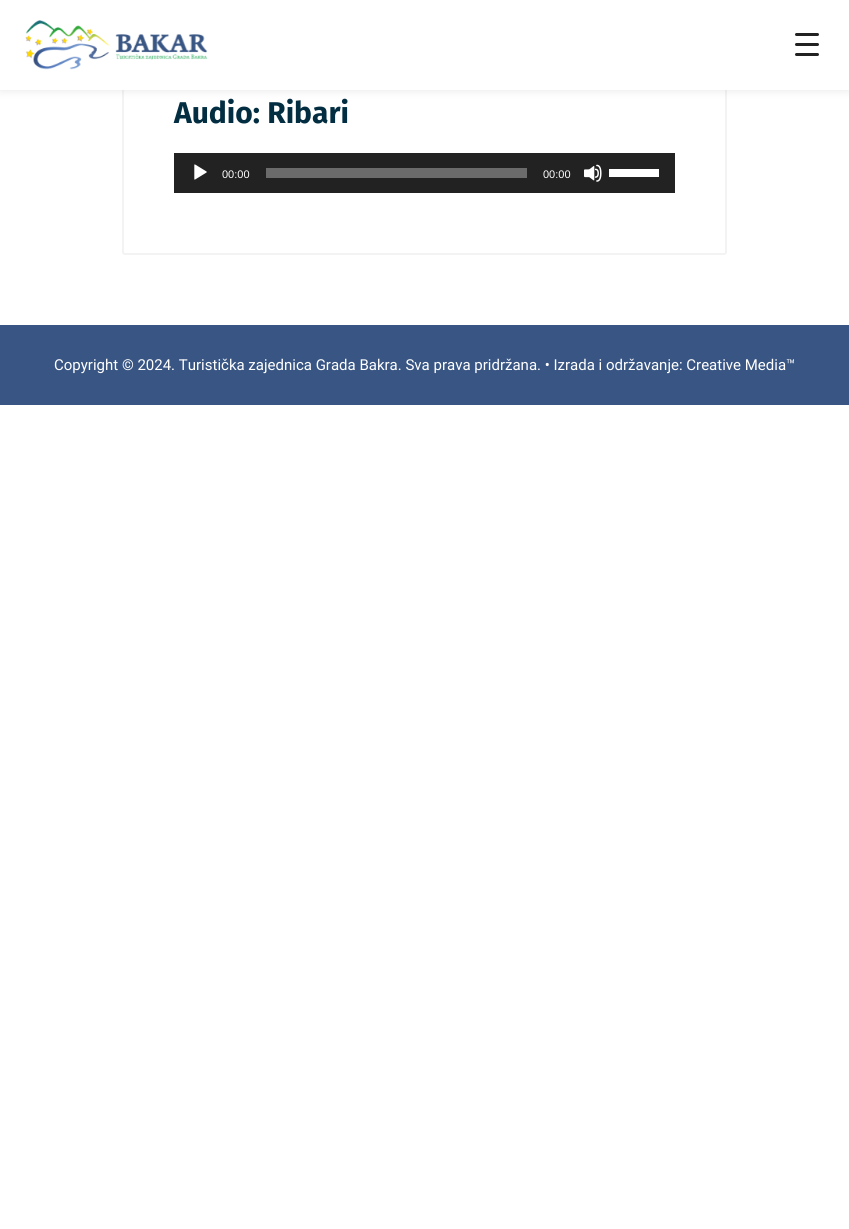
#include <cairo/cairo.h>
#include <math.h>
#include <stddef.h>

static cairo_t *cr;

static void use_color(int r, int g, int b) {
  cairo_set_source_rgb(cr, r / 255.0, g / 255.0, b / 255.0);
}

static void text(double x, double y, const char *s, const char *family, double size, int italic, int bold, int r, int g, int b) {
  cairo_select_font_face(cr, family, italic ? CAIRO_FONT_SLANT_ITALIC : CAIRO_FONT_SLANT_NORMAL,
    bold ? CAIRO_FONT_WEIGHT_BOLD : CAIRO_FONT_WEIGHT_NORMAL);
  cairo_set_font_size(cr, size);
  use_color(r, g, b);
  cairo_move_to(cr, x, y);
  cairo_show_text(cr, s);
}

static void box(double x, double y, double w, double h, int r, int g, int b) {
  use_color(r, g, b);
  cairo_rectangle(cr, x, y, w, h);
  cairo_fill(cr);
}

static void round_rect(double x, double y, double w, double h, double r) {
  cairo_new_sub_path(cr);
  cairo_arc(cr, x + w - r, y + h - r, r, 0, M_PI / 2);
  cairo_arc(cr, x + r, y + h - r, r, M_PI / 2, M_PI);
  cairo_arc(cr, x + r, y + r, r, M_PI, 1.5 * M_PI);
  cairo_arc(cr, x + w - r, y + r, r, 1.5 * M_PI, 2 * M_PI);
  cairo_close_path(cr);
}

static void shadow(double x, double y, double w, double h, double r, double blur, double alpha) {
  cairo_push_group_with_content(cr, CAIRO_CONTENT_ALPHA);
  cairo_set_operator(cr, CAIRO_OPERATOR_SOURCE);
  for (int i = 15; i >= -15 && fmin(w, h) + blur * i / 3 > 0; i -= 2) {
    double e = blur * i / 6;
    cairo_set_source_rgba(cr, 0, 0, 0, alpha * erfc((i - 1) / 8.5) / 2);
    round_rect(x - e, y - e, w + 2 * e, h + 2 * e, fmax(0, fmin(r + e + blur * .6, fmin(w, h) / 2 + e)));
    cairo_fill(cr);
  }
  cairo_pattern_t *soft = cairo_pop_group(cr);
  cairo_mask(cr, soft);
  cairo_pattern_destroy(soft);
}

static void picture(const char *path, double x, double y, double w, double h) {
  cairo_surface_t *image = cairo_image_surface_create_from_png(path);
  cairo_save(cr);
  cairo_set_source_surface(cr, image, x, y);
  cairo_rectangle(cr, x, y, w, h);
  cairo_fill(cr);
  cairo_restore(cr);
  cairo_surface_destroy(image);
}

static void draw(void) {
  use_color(255, 255, 255);
  cairo_paint(cr);
  round_rect(123, 51, 603, 203, 2);
  use_color(243, 243, 243);
  cairo_stroke(cr);
  use_color(0, 0, 0);
  shadow(0, 0, 849, 90, 0, 5, 0.1);
  box(0, 0, 849, 90, 255, 255, 255);
  picture("img_01.png", 25, 20, 183, 50);
  use_color(34, 34, 34);
  round_rect(795, 43, 24, 3, 1.5);
  cairo_fill(cr);
  round_rect(795, 33, 24, 3, 1.5);
  cairo_fill(cr);
  round_rect(795, 53, 24, 3, 1.5);
  cairo_fill(cr);
  box(174, 153, 501, 40, 34, 34, 34);
  picture("img_02.png", 194, 164, 13, 16);
  box(266, 168, 261, 10, 107, 107, 107);
  picture("img_03.png", 584, 164, 18, 18);
  box(609, 169, 50, 8, 255, 255, 255);
  box(0, 325, 849, 80, 56, 85, 131);
  text(174, 123, "Audio: Ribari", "Fira Sans", 30, 0, 1, 3, 46, 66);
  text(222, 178, "00:00", "Liberation Sans", 11, 0, 0, 255, 255, 255);
  text(543, 178, "00:00", "Liberation Sans", 11, 0, 0, 255, 255, 255);
  text(54, 370, "Copyright © 2024. Turistička zajednica Grada Bakra. Sva prava pridržana. • Izrada i održavanje: Creative Media™", "Roboto", 15, 0, 0, 255, 255, 255);
}

int main(void) {
  cairo_surface_t *surface = cairo_image_surface_create(CAIRO_FORMAT_RGB24, 849, 1229);
  cr = cairo_create(surface);
  cairo_font_options_t *options = cairo_font_options_create();
  cairo_font_options_set_hint_metrics(options, CAIRO_HINT_METRICS_OFF);
  cairo_font_options_set_hint_style(options, CAIRO_HINT_STYLE_NONE);
  cairo_set_font_options(cr, options);
  cairo_set_miter_limit(cr, 4);
  draw();
  cairo_surface_write_to_png(surface, "out.png");
  cairo_font_options_destroy(options);
  cairo_destroy(cr);
  cairo_surface_destroy(surface);
  return 0;
}
